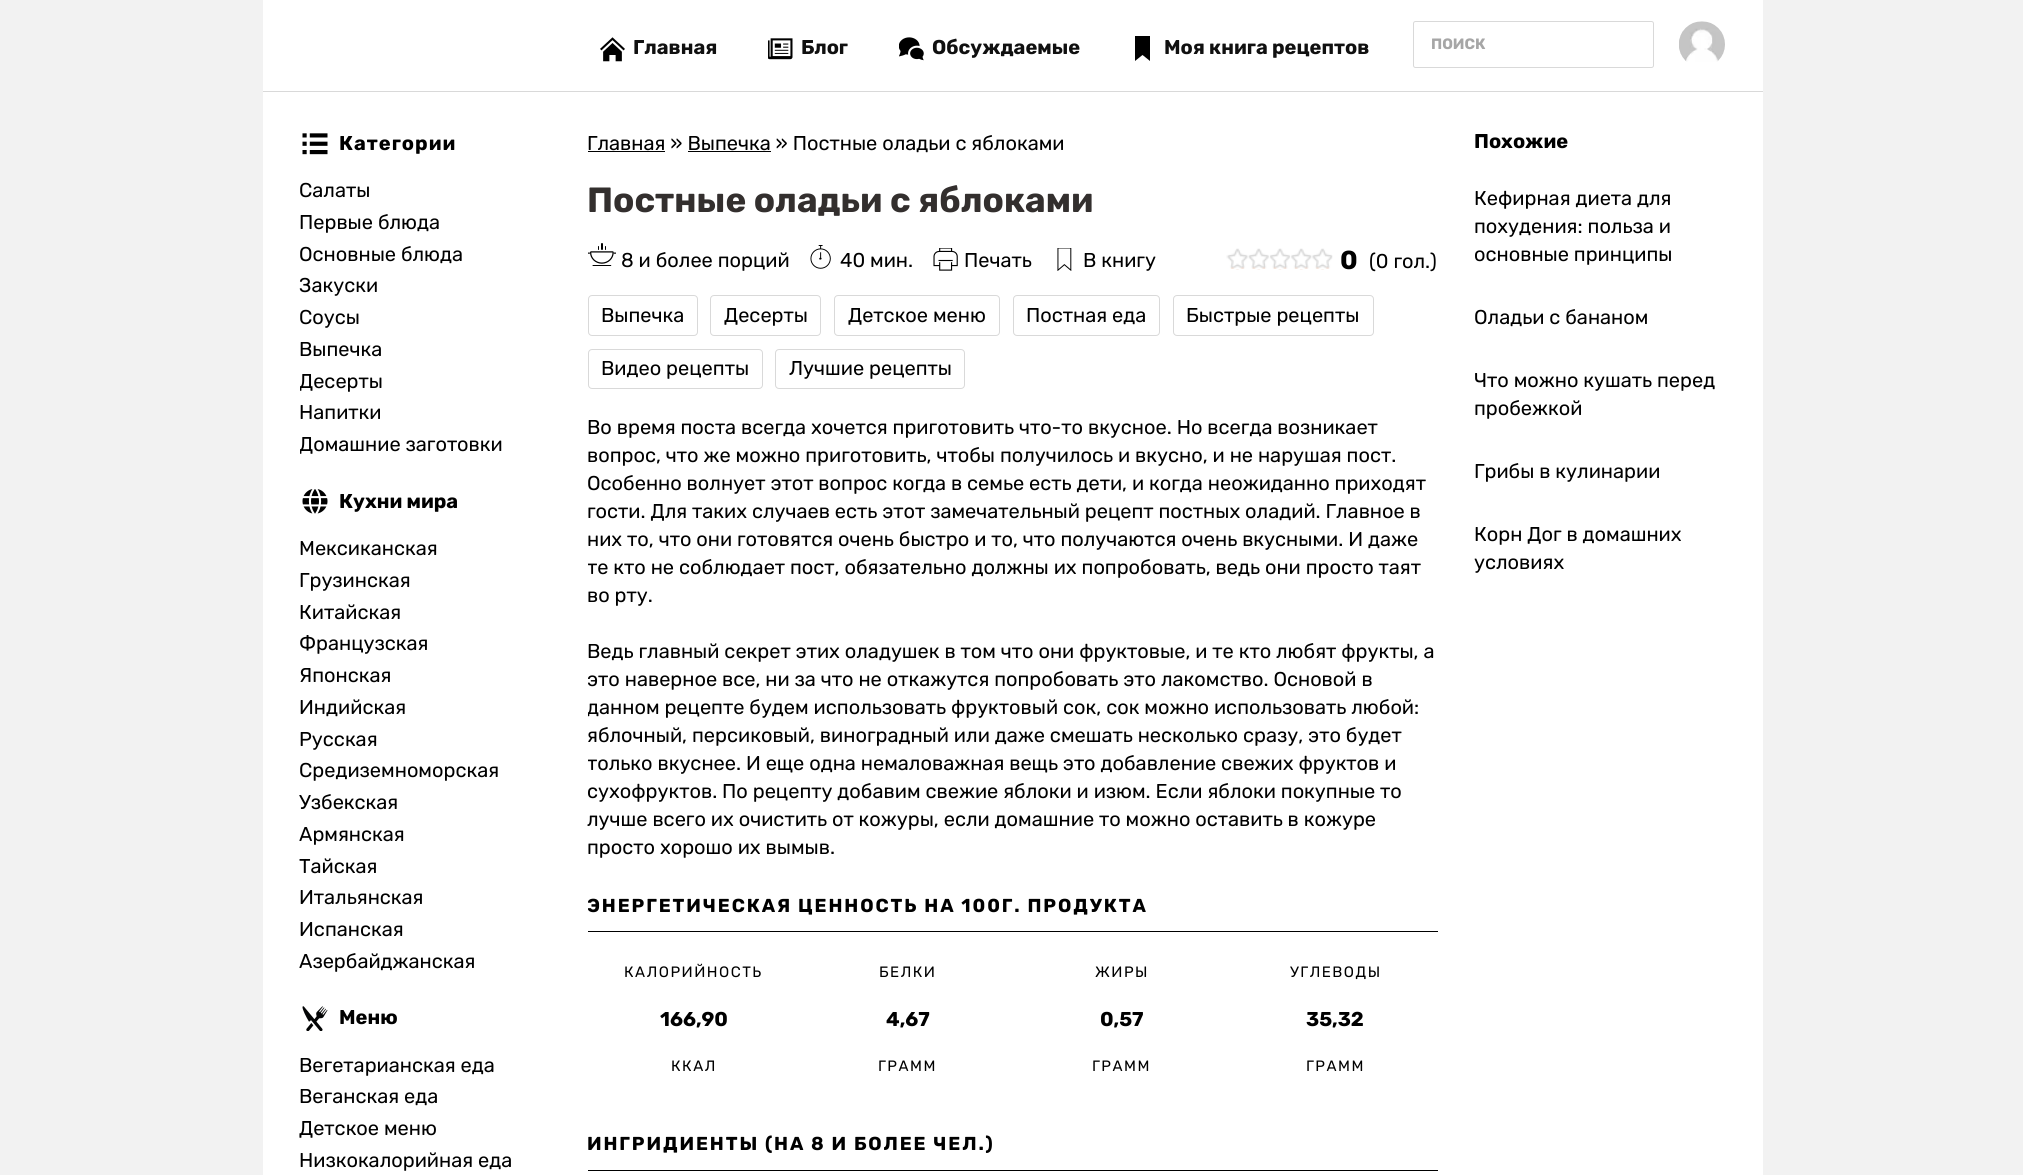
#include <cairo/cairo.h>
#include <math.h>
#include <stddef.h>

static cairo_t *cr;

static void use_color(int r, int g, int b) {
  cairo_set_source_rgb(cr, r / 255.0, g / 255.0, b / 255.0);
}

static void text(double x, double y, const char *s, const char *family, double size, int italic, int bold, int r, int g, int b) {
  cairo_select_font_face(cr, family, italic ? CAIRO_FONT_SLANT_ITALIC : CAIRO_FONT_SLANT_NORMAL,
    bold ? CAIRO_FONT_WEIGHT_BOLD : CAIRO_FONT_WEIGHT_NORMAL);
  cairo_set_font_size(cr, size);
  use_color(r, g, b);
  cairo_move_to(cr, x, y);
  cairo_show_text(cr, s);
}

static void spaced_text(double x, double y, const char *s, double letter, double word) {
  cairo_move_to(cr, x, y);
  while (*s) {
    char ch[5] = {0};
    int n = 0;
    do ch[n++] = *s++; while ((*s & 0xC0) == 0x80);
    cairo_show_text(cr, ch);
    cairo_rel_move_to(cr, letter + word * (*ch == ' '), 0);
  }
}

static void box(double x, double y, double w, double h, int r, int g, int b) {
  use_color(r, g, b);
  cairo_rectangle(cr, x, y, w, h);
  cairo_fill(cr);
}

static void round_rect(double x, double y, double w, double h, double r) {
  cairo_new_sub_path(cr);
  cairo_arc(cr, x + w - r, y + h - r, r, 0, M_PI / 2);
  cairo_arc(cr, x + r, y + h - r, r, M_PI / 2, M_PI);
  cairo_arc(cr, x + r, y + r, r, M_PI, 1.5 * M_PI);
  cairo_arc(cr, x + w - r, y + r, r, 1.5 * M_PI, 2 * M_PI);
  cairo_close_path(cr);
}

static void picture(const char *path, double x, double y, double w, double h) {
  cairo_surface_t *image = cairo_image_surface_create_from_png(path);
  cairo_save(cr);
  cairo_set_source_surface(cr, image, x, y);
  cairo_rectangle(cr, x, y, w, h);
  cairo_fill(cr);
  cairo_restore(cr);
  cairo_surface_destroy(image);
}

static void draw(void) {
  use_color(242, 242, 242);
  cairo_paint(cr);
  box(263, 0, 1500, 1175, 255, 255, 255);
  box(263, 91, 1500, 1, 217, 217, 217);
  picture("img_01.png", 600, 37, 25, 25);
  picture("img_02.png", 768, 38, 25, 22);
  picture("img_03.png", 899, 37, 25, 24);
  use_color(0, 0, 0);
  cairo_new_path(cr);
  cairo_move_to(cr, 1150, 61);
  cairo_line_to(cr, 1142.5, 55);
  cairo_line_to(cr, 1135, 61);
  cairo_line_to(cr, 1135, 36);
  cairo_line_to(cr, 1150, 36);
  cairo_close_path(cr);
  cairo_fill(cr);
  round_rect(1413.5, 21.5, 240, 46, 2);
  use_color(217, 217, 217);
  cairo_set_line_width(cr, 1);
  cairo_stroke(cr);
  picture("img_04.png", 1679, 21, 46, 41);
  picture("img_05.png", 302, 133, 26, 22);
  picture("img_06.png", 302, 489, 26, 25);
  picture("img_07.png", 302, 1006, 26, 25);
  box(588, 151, 77, 1, 0, 0, 0);
  box(688, 151, 83, 1, 0, 0, 0);
  picture("img_08.png", 588, 243, 28, 23);
  picture("img_09.png", 810, 245, 21, 24);
  picture("img_10.png", 933, 248, 25, 23);
  picture("img_11.png", 1057, 248, 15, 23);
  picture("img_12.png", 1226, 248, 107, 22);
  round_rect(588.5, 295.5, 109, 40, 3.5);
  use_color(217, 217, 217);
  cairo_stroke(cr);
  round_rect(710.5, 295.5, 110, 40, 3.5);
  cairo_stroke(cr);
  round_rect(834.5, 295.5, 165, 40, 3.5);
  cairo_stroke(cr);
  round_rect(1013.5, 295.5, 146, 40, 3.5);
  cairo_stroke(cr);
  round_rect(1173.5, 295.5, 200, 40, 3.5);
  cairo_stroke(cr);
  round_rect(588.5, 349.5, 174, 39, 3.5);
  cairo_stroke(cr);
  round_rect(775.5, 349.5, 189, 39, 3.5);
  cairo_stroke(cr);
  box(588, 931, 850, 1, 0, 0, 0);
  box(588, 1170, 850, 1, 0, 0, 0);
  text(633, 54, "Главная", "Rubik", 20, 0, 1, 16, 16, 16);
  text(801, 54, "Блог", "Rubik", 20, 0, 1, 16, 16, 16);
  text(932, 54, "Обсуждаемые", "Rubik", 20, 0, 1, 16, 16, 16);
  text(1164, 54, "Моя книга рецептов", "Rubik", 20, 0, 1, 16, 16, 16);
  text(1431, 49, "ПОИСК", "Rubik", 15, 0, 1, 166, 166, 166);
  cairo_set_font_size(cr, 20);
  use_color(0, 0, 0);
  spaced_text(339, 150, "Категории", 1, 0);
  text(299, 197, "Салаты", "Rubik", 20, 0, 0, 0, 0, 0);
  text(299, 229, "Первые блюда", "Rubik", 20, 0, 0, 0, 0, 0);
  text(299, 261, "Основные блюда", "Rubik", 20, 0, 0, 0, 0, 0);
  text(299, 292, "Закуски", "Rubik", 20, 0, 0, 0, 0, 0);
  text(299, 324, "Соусы", "Rubik", 20, 0, 0, 0, 0, 0);
  text(299, 356, "Выпечка", "Rubik", 20, 0, 0, 0, 0, 0);
  cairo_save(cr);
  cairo_rectangle(cr, 300, 364, 250, 32);
  cairo_clip(cr);
  text(299, 388, "Десерты", "Rubik", 20, 0, 0, 0, 0, 0);
  cairo_restore(cr);
  text(299, 419, "Напитки", "Rubik", 20, 0, 0, 0, 0, 0);
  cairo_save(cr);
  cairo_rectangle(cr, 300, 428, 250, 31);
  cairo_clip(cr);
  text(299, 451, "Домашние заготовки", "Rubik", 20, 0, 0, 0, 0, 0);
  cairo_restore(cr);
  text(339, 508, "Кухни мира", "Rubik", 20, 0, 1, 0, 0, 0);
  text(299, 555, "Мексиканская", "Rubik", 20, 0, 0, 0, 0, 0);
  text(299, 587, "Грузинская", "Rubik", 20, 0, 0, 0, 0, 0);
  text(299, 619, "Китайская", "Rubik", 20, 0, 0, 0, 0, 0);
  text(299, 650, "Французская", "Rubik", 20, 0, 0, 0, 0, 0);
  text(299, 682, "Японская", "Rubik", 20, 0, 0, 0, 0, 0);
  text(299, 714, "Индийская", "Rubik", 20, 0, 0, 0, 0, 0);
  text(299, 746, "Русская", "Rubik", 20, 0, 0, 0, 0, 0);
  text(299, 777, "Средиземноморская", "Rubik", 20, 0, 0, 0, 0, 0);
  text(299, 809, "Узбекская", "Rubik", 20, 0, 0, 0, 0, 0);
  text(299, 841, "Армянская", "Rubik", 20, 0, 0, 0, 0, 0);
  text(299, 873, "Тайская", "Rubik", 20, 0, 0, 0, 0, 0);
  text(299, 904, "Итальянская", "Rubik", 20, 0, 0, 0, 0, 0);
  text(299, 936, "Испанская", "Rubik", 20, 0, 0, 0, 0, 0);
  text(299, 968, "Азербайджанская", "Rubik", 20, 0, 0, 0, 0, 0);
  text(339, 1024, "Меню", "Rubik", 20, 0, 1, 0, 0, 0);
  text(299, 1072, "Вегетарианская еда", "Rubik", 20, 0, 0, 0, 0, 0);
  text(299, 1103, "Веганская еда", "Rubik", 20, 0, 0, 0, 0, 0);
  text(299, 1135, "Детское меню", "Rubik", 20, 0, 0, 0, 0, 0);
  text(299, 1167, "Низкокалорийная еда", "Rubik", 20, 0, 0, 0, 0, 0);
  text(587, 150, "Главная » Выпечка » Постные оладьи с яблоками", "Rubik", 20, 0, 0, 0, 0, 0);
  text(587, 212, "Постные оладьи с яблоками", "Rubik", 35, 0, 1, 51, 47, 46);
  text(621, 267, "8 и более порций", "Rubik", 20, 0, 0, 0, 0, 0);
  text(840, 267, "40 мин.", "Rubik", 20, 0, 0, 0, 0, 0);
  text(964, 267, "Печать", "Rubik", 20, 0, 0, 0, 0, 0);
  text(1083, 267, "В книгу", "Rubik", 20, 0, 0, 0, 0, 0);
  text(1340, 269, "0", "Rubik", 26, 0, 1, 0, 0, 0);
  text(1369, 268, "(0 гол.)", "Rubik", 20, 0, 0, 0, 0, 0);
  text(601, 322, "Выпечка", "Rubik", 20, 0, 0, 0, 0, 0);
  text(724, 322, "Десерты", "Rubik", 20, 0, 0, 0, 0, 0);
  text(848, 322, "Детское меню", "Rubik", 20, 0, 0, 0, 0, 0);
  text(1026, 322, "Постная еда", "Rubik", 20, 0, 0, 0, 0, 0);
  text(1186, 322, "Быстрые рецепты", "Rubik", 20, 0, 0, 0, 0, 0);
  text(601, 375, "Видео рецепты", "Rubik", 20, 0, 0, 0, 0, 0);
  text(789, 375, "Лучшие рецепты", "Rubik", 20, 0, 0, 0, 0, 0);
  text(587, 434, "Во время поста всегда хочется приготовить что-то вкусное. Но всегда возникает", "Rubik", 20, 0, 0, 0, 0, 0);
  text(587, 462, "вопрос, что же можно приготовить, чтобы получилось и вкусно, и не нарушая пост.", "Rubik", 20, 0, 0, 0, 0, 0);
  text(587, 490, "Особенно волнует этот вопрос когда в семье есть дети, и когда неожиданно приходят", "Rubik", 20, 0, 0, 0, 0, 0);
  text(587, 518, "гости. Для таких случаев есть этот замечательный рецепт постных оладий. Главное в", "Rubik", 20, 0, 0, 0, 0, 0);
  text(587, 546, "них то, что они готовятся очень быстро и то, что получаются очень вкусными. И даже", "Rubik", 20, 0, 0, 0, 0, 0);
  cairo_save(cr);
  round_rect(588, 183, 850, 678, 4);
  cairo_clip(cr);
  text(587, 574, "те кто не соблюдает пост, обязательно должны их попробовать, ведь они просто таят", "Rubik", 20, 0, 0, 0, 0, 0);
  cairo_restore(cr);
  text(587, 602, "во рту.", "Rubik", 20, 0, 0, 0, 0, 0);
  text(587, 658, "Ведь главный секрет этих оладушек в том что они фруктовые, и те кто любят фрукты, а", "Rubik", 20, 0, 0, 0, 0, 0);
  text(587, 686, "это наверное все, ни за что не откажутся попробовать это лакомство. Основой в", "Rubik", 20, 0, 0, 0, 0, 0);
  cairo_save(cr);
  round_rect(588, 183, 850, 678, 4);
  cairo_clip(cr);
  text(587, 714, "данном рецепте будем использовать фруктовый сок, сок можно использовать любой:", "Rubik", 20, 0, 0, 0, 0, 0);
  cairo_restore(cr);
  text(587, 742, "яблочный, персиковый, виноградный или даже смешать несколько сразу, это будет", "Rubik", 20, 0, 0, 0, 0, 0);
  cairo_save(cr);
  round_rect(588, 183, 850, 678, 4);
  cairo_clip(cr);
  text(587, 770, "только вкуснее. И еще одна немаловажная вещь это добавление свежих фруктов и", "Rubik", 20, 0, 0, 0, 0, 0);
  cairo_restore(cr);
  text(587, 798, "сухофруктов. По рецепту добавим свежие яблоки и изюм. Если яблоки покупные то", "Rubik", 20, 0, 0, 0, 0, 0);
  text(587, 826, "лучше всего их очистить от кожуры, если домашние то можно оставить в кожуре", "Rubik", 20, 0, 0, 0, 0, 0);
  text(587, 854, "просто хорошо их вымыв.", "Rubik", 20, 0, 0, 0, 0, 0);
  cairo_save(cr);
  cairo_rectangle(cr, 588, 93, 881, 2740);
  cairo_clip(cr);
  cairo_select_font_face(cr, "Rubik", CAIRO_FONT_SLANT_NORMAL, CAIRO_FONT_WEIGHT_BOLD);
  cairo_set_font_size(cr, 18.75);
  spaced_text(587, 912, "ЭНЕРГЕТИЧЕСКАЯ ЦЕННОСТЬ НА 100Г. ПРОДУКТА", 1.9, 0);
  cairo_restore(cr);
  cairo_set_font_size(cr, 15);
  spaced_text(624, 977, "КАЛОРИЙНОСТЬ", 1.5, 0);
  text(660, 1026, "166,90", "Rubik", 20, 0, 1, 0, 0, 0);
  cairo_select_font_face(cr, "Rubik", CAIRO_FONT_SLANT_NORMAL, CAIRO_FONT_WEIGHT_NORMAL);
  cairo_set_font_size(cr, 15);
  spaced_text(671, 1071, "ККАЛ", 1.5, 0);
  spaced_text(879, 977, "БЕЛКИ", 1.5, 0);
  text(886, 1026, "4,67", "Rubik", 20, 0, 1, 0, 0, 0);
  cairo_select_font_face(cr, "Rubik", CAIRO_FONT_SLANT_NORMAL, CAIRO_FONT_WEIGHT_NORMAL);
  cairo_set_font_size(cr, 15);
  spaced_text(878, 1071, "ГРАММ", 1.5, 0);
  spaced_text(1095, 977, "ЖИРЫ", 1.5, 0);
  text(1100, 1026, "0,57", "Rubik", 20, 0, 1, 0, 0, 0);
  cairo_select_font_face(cr, "Rubik", CAIRO_FONT_SLANT_NORMAL, CAIRO_FONT_WEIGHT_NORMAL);
  cairo_set_font_size(cr, 15);
  spaced_text(1092, 1071, "ГРАММ", 1.5, 0);
  spaced_text(1290, 977, "УГЛЕВОДЫ", 1.5, 0);
  text(1306, 1026, "35,32", "Rubik", 20, 0, 1, 0, 0, 0);
  cairo_select_font_face(cr, "Rubik", CAIRO_FONT_SLANT_NORMAL, CAIRO_FONT_WEIGHT_NORMAL);
  cairo_set_font_size(cr, 15);
  spaced_text(1306, 1071, "ГРАММ", 1.5, 0);
  cairo_select_font_face(cr, "Rubik", CAIRO_FONT_SLANT_NORMAL, CAIRO_FONT_WEIGHT_BOLD);
  cairo_set_font_size(cr, 18.75);
  spaced_text(587, 1150, "ИНГРИДИЕНТЫ (НА 8 И БОЛЕЕ ЧЕЛ.)", 1.9, 0);
  text(1474, 148, "Похожие", "Rubik", 20, 0, 1, 0, 0, 0);
  text(1474, 205, "Кефирная диета для", "Rubik", 20, 0, 0, 0, 0, 0);
  text(1474, 233, "похудения: польза и", "Rubik", 20, 0, 0, 0, 0, 0);
  text(1474, 261, "основные принципы", "Rubik", 20, 0, 0, 0, 0, 0);
  text(1474, 324, "Оладьи с бананом", "Rubik", 20, 0, 0, 0, 0, 0);
  text(1474, 387, "Что можно кушать перед", "Rubik", 20, 0, 0, 0, 0, 0);
  text(1474, 415, "пробежкой", "Rubik", 20, 0, 0, 0, 0, 0);
  text(1474, 478, "Грибы в кулинарии", "Rubik", 20, 0, 0, 0, 0, 0);
  text(1474, 541, "Корн Дог в домашних", "Rubik", 20, 0, 0, 0, 0, 0);
  text(1474, 569, "условиях", "Rubik", 20, 0, 0, 0, 0, 0);
}

int main(void) {
  cairo_surface_t *surface = cairo_image_surface_create(CAIRO_FORMAT_RGB24, 2023, 1175);
  cr = cairo_create(surface);
  cairo_font_options_t *options = cairo_font_options_create();
  cairo_font_options_set_hint_metrics(options, CAIRO_HINT_METRICS_OFF);
  cairo_font_options_set_hint_style(options, CAIRO_HINT_STYLE_NONE);
  cairo_set_font_options(cr, options);
  cairo_set_miter_limit(cr, 4);
  draw();
  cairo_surface_write_to_png(surface, "out.png");
  cairo_font_options_destroy(options);
  cairo_destroy(cr);
  cairo_surface_destroy(surface);
  return 0;
}
